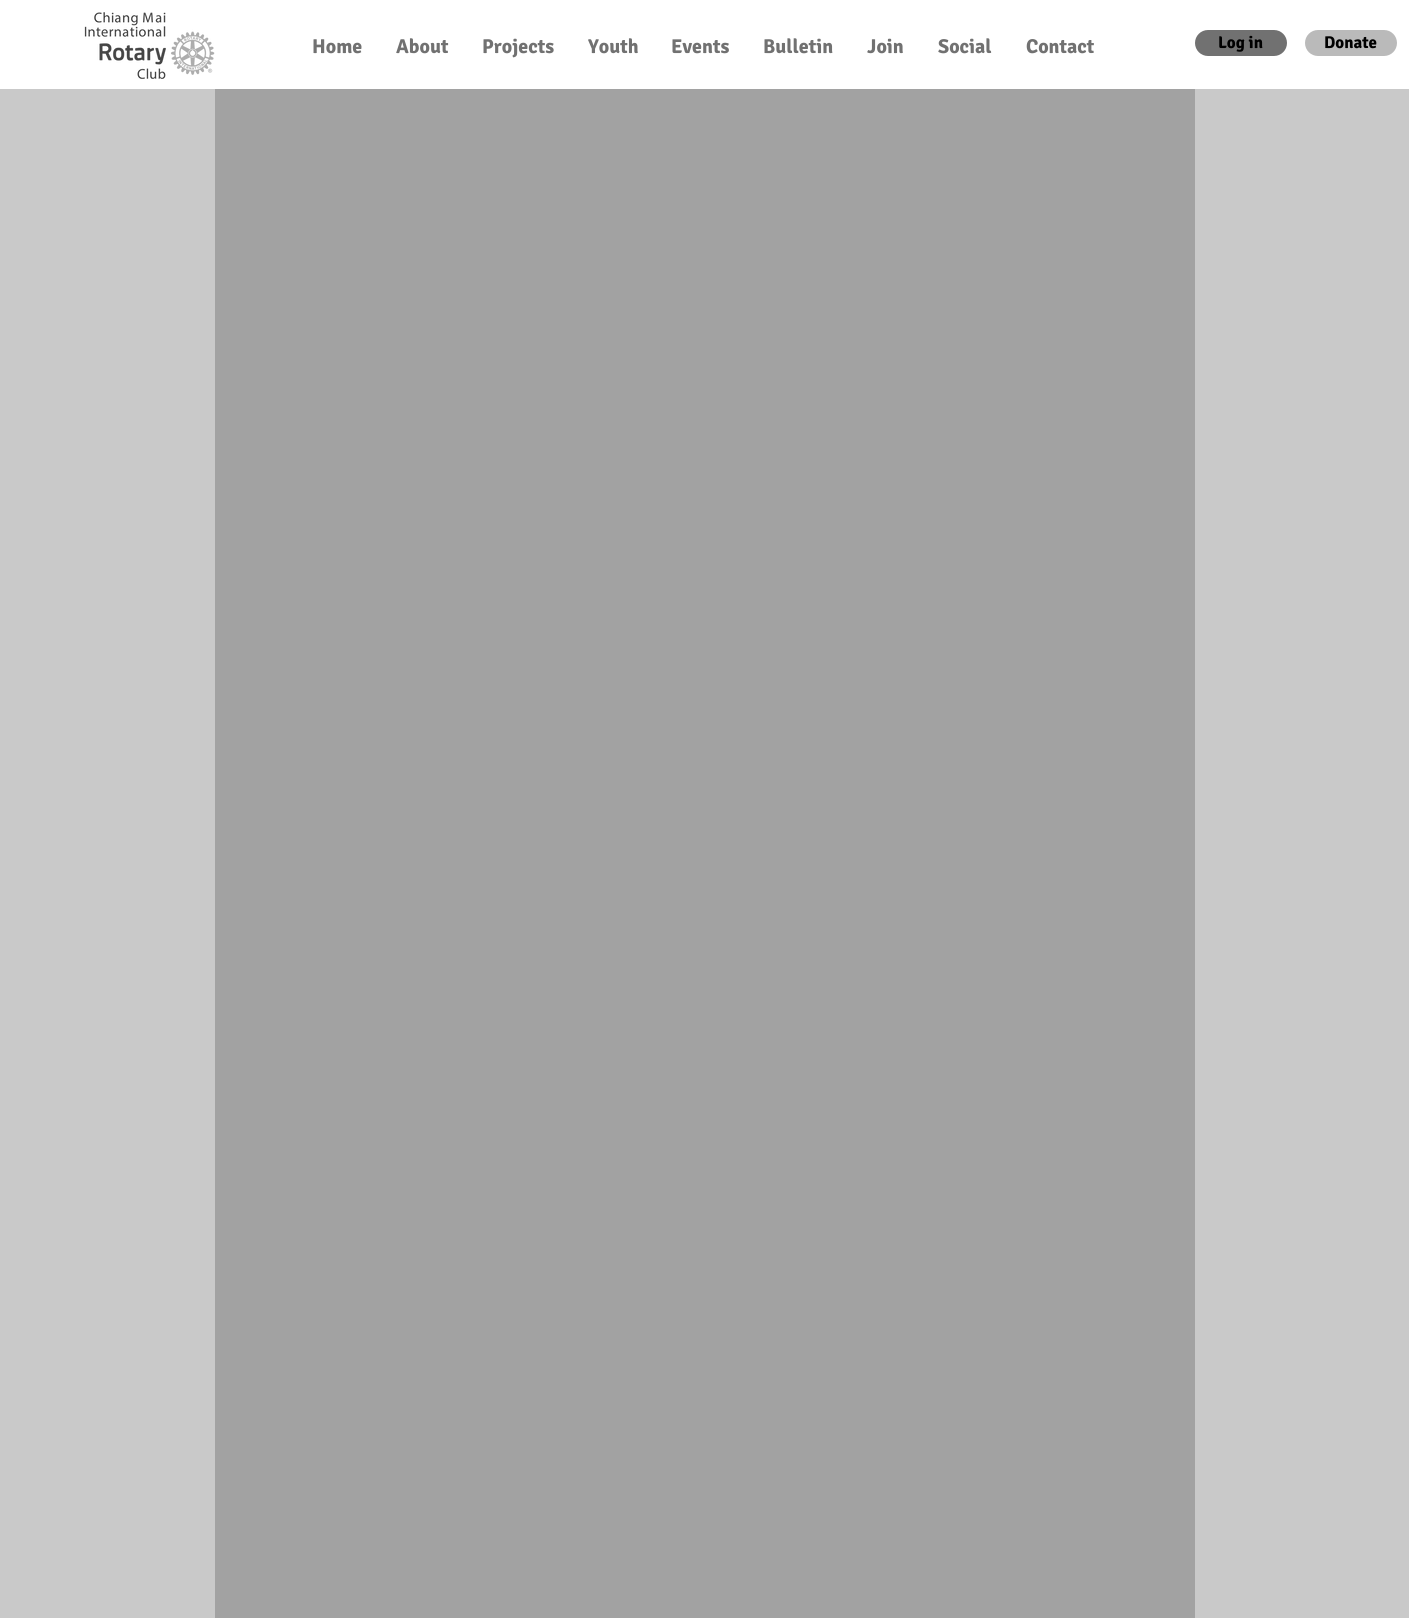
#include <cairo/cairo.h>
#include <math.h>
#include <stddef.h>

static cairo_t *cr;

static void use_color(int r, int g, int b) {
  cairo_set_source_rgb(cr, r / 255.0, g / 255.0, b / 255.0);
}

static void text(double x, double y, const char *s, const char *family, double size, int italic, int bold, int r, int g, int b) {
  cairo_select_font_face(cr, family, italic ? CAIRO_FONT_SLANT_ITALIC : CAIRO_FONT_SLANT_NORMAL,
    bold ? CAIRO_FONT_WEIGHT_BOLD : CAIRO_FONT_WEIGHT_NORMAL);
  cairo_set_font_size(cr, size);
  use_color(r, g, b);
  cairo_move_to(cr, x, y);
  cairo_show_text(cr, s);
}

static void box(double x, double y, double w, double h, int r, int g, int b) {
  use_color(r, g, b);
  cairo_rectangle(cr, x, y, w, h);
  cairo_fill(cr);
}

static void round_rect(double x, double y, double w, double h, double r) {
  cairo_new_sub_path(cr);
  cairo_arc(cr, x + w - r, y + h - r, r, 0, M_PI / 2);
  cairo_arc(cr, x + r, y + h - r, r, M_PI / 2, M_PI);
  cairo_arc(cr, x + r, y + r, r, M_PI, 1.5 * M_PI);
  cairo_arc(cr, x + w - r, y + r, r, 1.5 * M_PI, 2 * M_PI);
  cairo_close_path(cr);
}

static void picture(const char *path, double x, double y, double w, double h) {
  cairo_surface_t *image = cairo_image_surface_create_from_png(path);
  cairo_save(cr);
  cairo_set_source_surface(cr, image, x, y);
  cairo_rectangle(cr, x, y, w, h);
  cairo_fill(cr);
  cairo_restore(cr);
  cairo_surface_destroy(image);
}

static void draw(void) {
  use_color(201, 201, 201);
  cairo_paint(cr);
  box(0, 0, 1409, 89, 255, 255, 255);
  picture("img_01.png", 84, 12, 131, 67);
  use_color(113, 113, 113);
  round_rect(1195, 30, 92, 26, 13);
  cairo_fill(cr);
  use_color(186, 186, 186);
  round_rect(1305, 30, 92, 26, 13);
  cairo_fill(cr);
  box(215, 89, 980, 1529, 162, 162, 162);
  text(312, 53, "Home", "Signika", 20, 0, 1, 113, 113, 113);
  text(396, 53, "About", "Signika", 20, 0, 1, 113, 113, 113);
  text(482, 53, "Projects", "Signika", 20, 0, 1, 113, 113, 113);
  text(588, 53, "Youth", "Signika", 20, 0, 1, 113, 113, 113);
  text(671, 53, "Events", "Signika", 20, 0, 1, 113, 113, 113);
  text(763, 53, "Bulletin", "Signika", 20, 0, 1, 113, 113, 113);
  text(867, 53, "Join", "Signika", 20, 0, 1, 113, 113, 113);
  text(938, 53, "Social", "Signika", 20, 0, 1, 113, 113, 113);
  text(1026, 53, "Contact", "Signika", 20, 0, 1, 113, 113, 113);
  text(1218, 48, "Log in", "Signika", 17, 0, 1, 0, 0, 0);
  text(1324, 48, "Donate", "Signika", 17, 0, 1, 0, 0, 0);
}

int main(void) {
  cairo_surface_t *surface = cairo_image_surface_create(CAIRO_FORMAT_RGB24, 1409, 1618);
  cr = cairo_create(surface);
  cairo_font_options_t *options = cairo_font_options_create();
  cairo_font_options_set_hint_metrics(options, CAIRO_HINT_METRICS_OFF);
  cairo_font_options_set_hint_style(options, CAIRO_HINT_STYLE_NONE);
  cairo_set_font_options(cr, options);
  cairo_set_miter_limit(cr, 4);
  draw();
  cairo_surface_write_to_png(surface, "out.png");
  cairo_font_options_destroy(options);
  cairo_destroy(cr);
  cairo_surface_destroy(surface);
  return 0;
}
